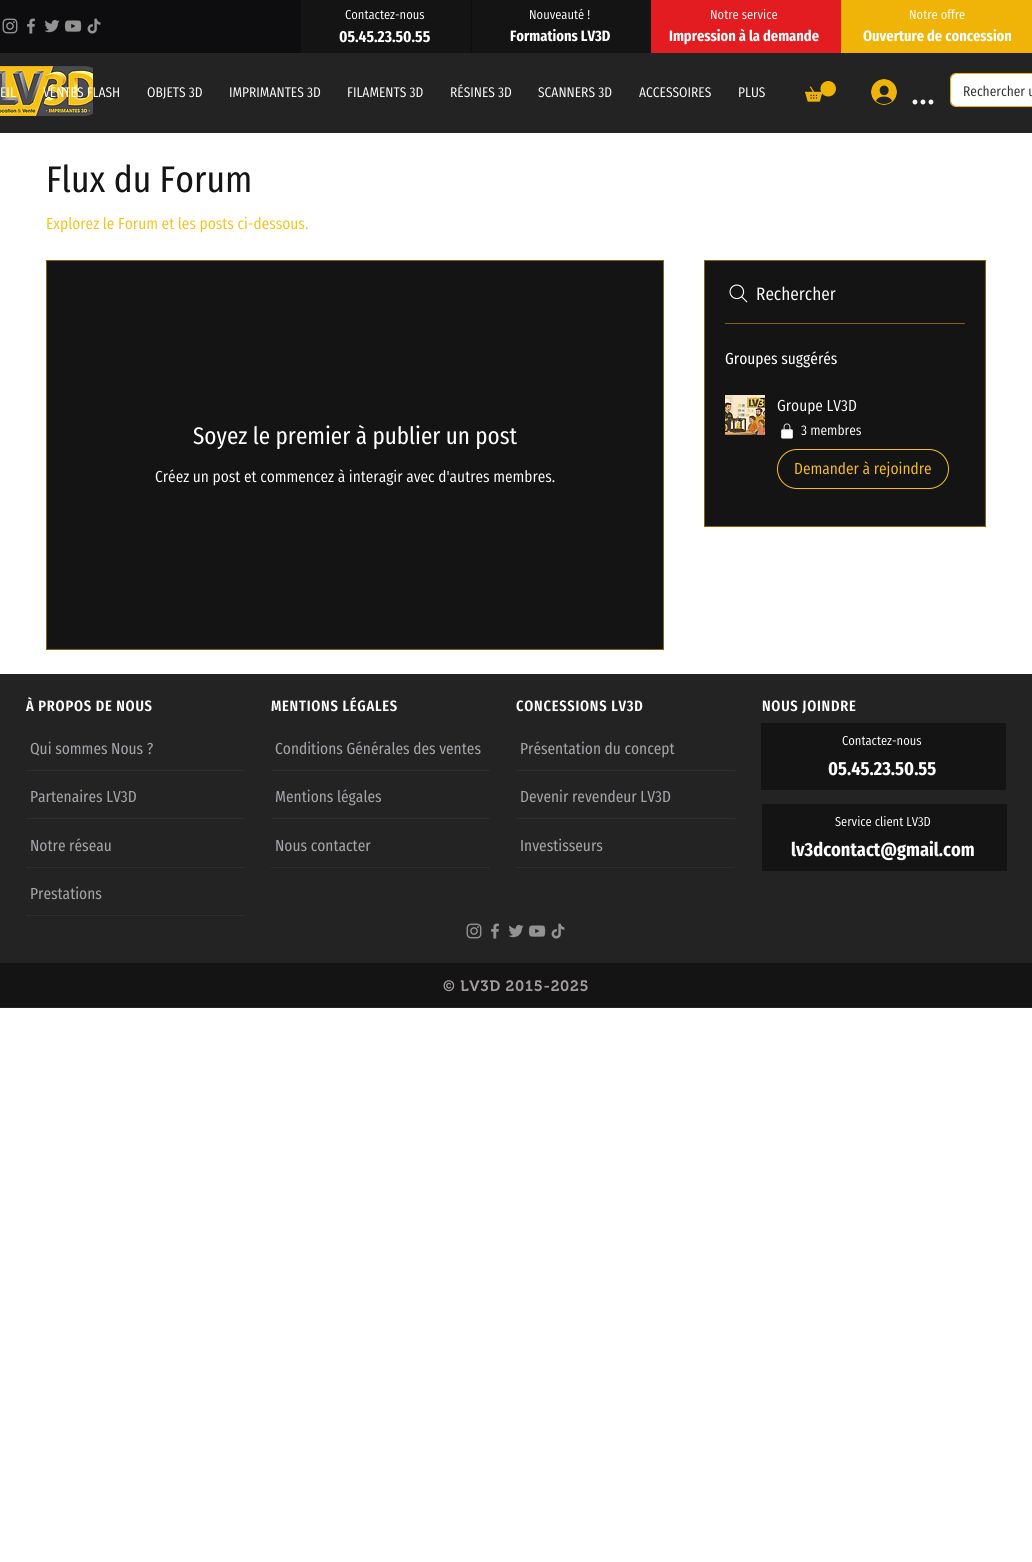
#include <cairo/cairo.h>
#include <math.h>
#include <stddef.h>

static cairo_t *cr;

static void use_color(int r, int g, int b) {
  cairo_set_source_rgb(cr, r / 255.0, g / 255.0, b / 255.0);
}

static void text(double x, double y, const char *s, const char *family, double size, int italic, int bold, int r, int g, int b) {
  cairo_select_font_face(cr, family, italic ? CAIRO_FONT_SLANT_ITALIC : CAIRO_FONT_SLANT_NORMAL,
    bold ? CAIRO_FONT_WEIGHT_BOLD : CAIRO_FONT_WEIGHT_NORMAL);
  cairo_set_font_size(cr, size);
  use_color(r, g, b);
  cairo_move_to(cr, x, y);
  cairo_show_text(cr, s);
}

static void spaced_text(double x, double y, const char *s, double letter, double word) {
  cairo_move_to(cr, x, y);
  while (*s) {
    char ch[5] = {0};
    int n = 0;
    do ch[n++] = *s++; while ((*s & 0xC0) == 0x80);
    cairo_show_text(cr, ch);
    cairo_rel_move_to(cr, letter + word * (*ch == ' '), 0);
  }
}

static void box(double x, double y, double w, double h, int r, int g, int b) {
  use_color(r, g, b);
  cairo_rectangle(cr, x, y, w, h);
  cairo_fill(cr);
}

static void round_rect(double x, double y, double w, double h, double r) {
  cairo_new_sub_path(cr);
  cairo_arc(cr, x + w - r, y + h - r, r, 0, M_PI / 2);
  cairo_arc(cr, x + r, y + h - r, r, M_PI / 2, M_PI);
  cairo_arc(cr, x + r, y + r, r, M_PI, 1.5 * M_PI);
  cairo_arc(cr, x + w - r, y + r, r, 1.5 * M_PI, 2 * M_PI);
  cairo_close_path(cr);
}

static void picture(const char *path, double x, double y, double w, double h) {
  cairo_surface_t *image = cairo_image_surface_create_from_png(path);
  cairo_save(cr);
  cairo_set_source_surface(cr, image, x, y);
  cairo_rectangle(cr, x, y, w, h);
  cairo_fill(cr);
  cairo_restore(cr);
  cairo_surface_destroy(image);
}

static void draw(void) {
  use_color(255, 255, 255);
  cairo_paint(cr);
  box(0, 0, 472, 53, 13, 12, 14);
  picture("img_01.png", 2, 18, 16, 16);
  picture("img_02.png", 27, 18, 8, 16);
  picture("img_03.png", 44, 19, 16, 14);
  picture("img_04.png", 64, 20, 18, 12);
  picture("img_05.png", 87, 18, 14, 16);
  box(301, 0, 170, 53, 20, 20, 20);
  box(472, 0, 179, 53, 20, 20, 20);
  box(651, 0, 190, 53, 226, 28, 33);
  box(841, 0, 191, 53, 239, 180, 7);
  box(0, 53, 1032, 80, 36, 35, 35);
  picture("img_06.png", 0, 66, 93, 50);
  picture("img_07.png", 805, 81, 31, 21);
  round_rect(950.5, 73.5, 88, 33, 5.5);
  use_color(239, 180, 7);
  cairo_set_line_width(cr, 1);
  cairo_stroke(cr);
  use_color(255, 255, 255);
  round_rect(951, 74, 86, 32, 5);
  cairo_fill(cr);
  picture("img_08.png", 871, 79, 26, 26);
  use_color(20, 20, 20);
  cairo_rectangle(cr, 46.5, 260.5, 617, 389);
  cairo_fill_preserve(cr);
  use_color(130, 100, 14);
  cairo_stroke(cr);
  use_color(20, 20, 20);
  cairo_rectangle(cr, 704.5, 260.5, 281, 266);
  cairo_fill_preserve(cr);
  use_color(130, 100, 14);
  cairo_stroke(cr);
  picture("img_09.png", 729, 284, 19, 19);
  box(725, 323, 240, 1, 130, 100, 14);
  picture("img_10.png", 725, 395, 40, 40);
  picture("img_11.png", 781, 423, 12, 16);
  round_rect(777.5, 449.5, 171, 39, 19.5);
  use_color(249, 193, 22);
  cairo_stroke(cr);
  box(0, 674, 1032, 334, 36, 35, 35);
  box(26, 770, 219, 1, 47, 46, 46);
  box(26, 818, 219, 1, 47, 46, 46);
  box(26, 867, 219, 1, 47, 46, 46);
  box(26, 915, 219, 1, 47, 46, 46);
  box(271, 770, 219, 1, 47, 46, 46);
  box(271, 818, 219, 1, 47, 46, 46);
  box(271, 867, 219, 1, 47, 46, 46);
  box(516, 770, 219, 1, 47, 46, 46);
  box(516, 818, 219, 1, 47, 46, 46);
  box(516, 867, 219, 1, 47, 46, 46);
  picture("img_12.png", 466, 923, 16, 16);
  picture("img_13.png", 491, 923, 8, 16);
  picture("img_14.png", 508, 924, 16, 14);
  picture("img_15.png", 528, 925, 18, 12);
  picture("img_16.png", 551, 923, 14, 16);
  box(761, 723, 245, 67, 20, 20, 20);
  box(762, 804, 245, 67, 20, 20, 20);
  box(0, 963, 1032, 44, 20, 20, 20);
  text(345, 19, "Contactez-nous", "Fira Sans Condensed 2", 13, 0, 0, 255, 255, 255);
  text(339, 42, "05.45.23.50.55", "Fira Sans Condensed", 16, 0, 1, 255, 255, 255);
  text(529, 19, "Nouveauté !", "Fira Sans Condensed 2", 13, 0, 0, 255, 255, 255);
  text(510, 41, "Formations LV3D", "Fira Sans Condensed", 15, 0, 1, 255, 255, 255);
  text(710, 19, "Notre service", "Fira Sans Condensed 2", 13, 0, 0, 255, 255, 255);
  text(669, 41, "Impression à la demande", "Fira Sans Condensed", 15, 0, 1, 255, 255, 255);
  text(909, 19, "Notre offre", "Fira Sans Condensed 2", 13, 0, 0, 255, 255, 255);
  text(863, 41, "Ouverture de concession", "Fira Sans Condensed", 15, 0, 1, 255, 255, 255);
  text(0, 97, "EIL", "Fira Sans Condensed 2", 14, 0, 0, 255, 255, 255);
  text(43, 97, "VENTES FLASH", "Fira Sans Condensed 2", 14, 0, 0, 255, 255, 255);
  text(147, 97, "OBJETS 3D", "Fira Sans Condensed 2", 14, 0, 0, 255, 255, 255);
  text(229, 97, "IMPRIMANTES 3D", "Fira Sans Condensed 2", 14, 0, 0, 255, 255, 255);
  text(347, 97, "FILAMENTS 3D", "Fira Sans Condensed 2", 14, 0, 0, 255, 255, 255);
  text(450, 97, "RÉSINES 3D", "Fira Sans Condensed 2", 14, 0, 0, 255, 255, 255);
  text(538, 97, "SCANNERS 3D", "Fira Sans Condensed 2", 14, 0, 0, 255, 255, 255);
  text(639, 97, "ACCESSOIRES", "Fira Sans Condensed 2", 14, 0, 0, 255, 255, 255);
  text(738, 97, "PLUS", "Fira Sans Condensed 2", 14, 0, 0, 255, 255, 255);
  text(963, 96, "Rechercher u", "Fira Sans Condensed 2", 14, 0, 0, 46, 46, 46);
  text(911, 104, "...", "Fira Sans Condensed", 37, 0, 0, 255, 255, 255);
  text(46, 192, "Flux du Forum", "Fira Sans Condensed", 37, 0, 0, 20, 20, 20);
  text(46, 229, "Explorez le Forum et les posts ci-dessous.", "Fira Sans Condensed 2", 16, 0, 0, 249, 193, 22);
  text(193, 444, "Soyez le premier à publier un post", "Fira Sans Condensed", 24, 0, 0, 255, 255, 255);
  text(155, 482, "Créez un post et commencez à interagir avec d'autres membres.", "Fira Sans Condensed 2", 16, 0, 0, 255, 255, 255);
  text(756, 300, "Rechercher", "Fira Sans Condensed 2", 18, 0, 0, 255, 255, 255);
  text(725, 364, "Groupes suggérés", "Fira Sans Condensed", 16, 0, 0, 255, 255, 255);
  text(777, 411, "Groupe LV3D", "Fira Sans Condensed 2", 16, 0, 0, 255, 255, 255);
  text(801, 435, "3 membres", "Fira Sans Condensed 2", 14, 0, 0, 255, 255, 255);
  text(794, 474, "Demander à rejoindre", "Fira Sans Condensed 2", 16, 0, 0, 249, 193, 22);
  cairo_select_font_face(cr, "Fira Sans Condensed SemiBold", CAIRO_FONT_SLANT_NORMAL, CAIRO_FONT_WEIGHT_NORMAL);
  cairo_set_font_size(cr, 15);
  use_color(255, 255, 255);
  spaced_text(26, 711, "À PROPOS DE NOUS", 0.75, 0);
  text(30, 754, "Qui sommes Nous ?", "Fira Sans Condensed", 16, 0, 0, 165, 163, 169);
  text(30, 802, "Partenaires LV3D", "Fira Sans Condensed", 16, 0, 0, 165, 163, 169);
  text(30, 851, "Notre réseau", "Fira Sans Condensed", 16, 0, 0, 165, 163, 169);
  text(30, 899, "Prestations", "Fira Sans Condensed", 16, 0, 0, 165, 163, 169);
  cairo_select_font_face(cr, "Fira Sans Condensed SemiBold", CAIRO_FONT_SLANT_NORMAL, CAIRO_FONT_WEIGHT_NORMAL);
  cairo_set_font_size(cr, 15);
  use_color(255, 255, 255);
  spaced_text(271, 711, "MENTIONS LÉGALES", 0.75, 0);
  text(275, 754, "Conditions Générales des ventes", "Fira Sans Condensed", 16, 0, 0, 165, 163, 169);
  text(275, 802, "Mentions légales", "Fira Sans Condensed", 16, 0, 0, 165, 163, 169);
  text(275, 851, "Nous contacter", "Fira Sans Condensed", 16, 0, 0, 165, 163, 169);
  cairo_select_font_face(cr, "Fira Sans Condensed SemiBold", CAIRO_FONT_SLANT_NORMAL, CAIRO_FONT_WEIGHT_NORMAL);
  cairo_set_font_size(cr, 15);
  use_color(255, 255, 255);
  spaced_text(516, 711, "CONCESSIONS LV3D", 0.75, 0);
  text(520, 754, "Présentation du concept", "Fira Sans Condensed", 16, 0, 0, 165, 163, 169);
  text(520, 802, "Devenir revendeur LV3D", "Fira Sans Condensed", 16, 0, 0, 165, 163, 169);
  text(520, 851, "Investisseurs", "Fira Sans Condensed", 16, 0, 0, 165, 163, 169);
  cairo_select_font_face(cr, "Fira Sans Condensed SemiBold", CAIRO_FONT_SLANT_NORMAL, CAIRO_FONT_WEIGHT_NORMAL);
  cairo_set_font_size(cr, 15);
  use_color(255, 255, 255);
  spaced_text(762, 711, "NOUS JOINDRE", 0.75, 0);
  text(842, 745, "Contactez-nous", "Fira Sans Condensed 2", 13, 0, 0, 255, 255, 255);
  text(828, 775, "05.45.23.50.55", "Fira Sans Condensed", 19, 0, 1, 255, 255, 255);
  text(835, 826, "Service client LV3D", "Fira Sans Condensed 2", 13, 0, 0, 255, 255, 255);
  text(791, 856, "lv3dcontact@gmail.com", "Fira Sans Condensed", 19, 0, 1, 255, 255, 255);
  cairo_select_font_face(cr, "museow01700 SemiBold", CAIRO_FONT_SLANT_NORMAL, CAIRO_FONT_WEIGHT_NORMAL);
  cairo_set_font_size(cr, 15);
  use_color(162, 156, 156);
  spaced_text(443, 991, "© LV3D 2015-2025", 0.75, 0);
}

int main(void) {
  cairo_surface_t *surface = cairo_image_surface_create(CAIRO_FORMAT_RGB24, 1032, 1562);
  cr = cairo_create(surface);
  cairo_font_options_t *options = cairo_font_options_create();
  cairo_font_options_set_hint_metrics(options, CAIRO_HINT_METRICS_OFF);
  cairo_font_options_set_hint_style(options, CAIRO_HINT_STYLE_NONE);
  cairo_set_font_options(cr, options);
  cairo_set_miter_limit(cr, 4);
  draw();
  cairo_surface_write_to_png(surface, "out.png");
  cairo_font_options_destroy(options);
  cairo_destroy(cr);
  cairo_surface_destroy(surface);
  return 0;
}
